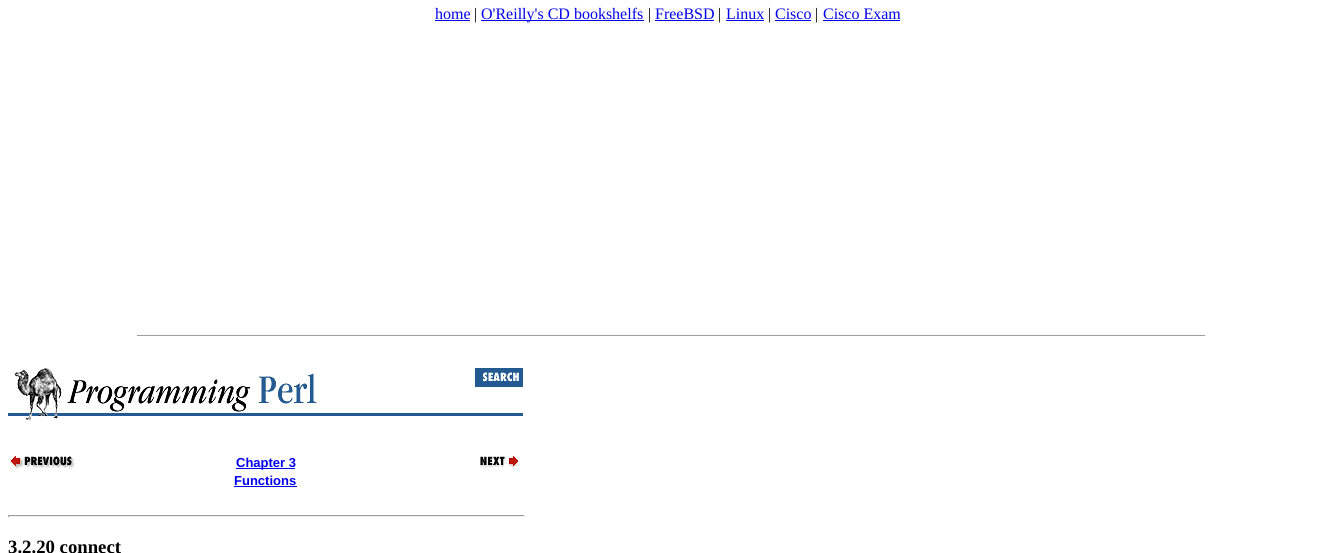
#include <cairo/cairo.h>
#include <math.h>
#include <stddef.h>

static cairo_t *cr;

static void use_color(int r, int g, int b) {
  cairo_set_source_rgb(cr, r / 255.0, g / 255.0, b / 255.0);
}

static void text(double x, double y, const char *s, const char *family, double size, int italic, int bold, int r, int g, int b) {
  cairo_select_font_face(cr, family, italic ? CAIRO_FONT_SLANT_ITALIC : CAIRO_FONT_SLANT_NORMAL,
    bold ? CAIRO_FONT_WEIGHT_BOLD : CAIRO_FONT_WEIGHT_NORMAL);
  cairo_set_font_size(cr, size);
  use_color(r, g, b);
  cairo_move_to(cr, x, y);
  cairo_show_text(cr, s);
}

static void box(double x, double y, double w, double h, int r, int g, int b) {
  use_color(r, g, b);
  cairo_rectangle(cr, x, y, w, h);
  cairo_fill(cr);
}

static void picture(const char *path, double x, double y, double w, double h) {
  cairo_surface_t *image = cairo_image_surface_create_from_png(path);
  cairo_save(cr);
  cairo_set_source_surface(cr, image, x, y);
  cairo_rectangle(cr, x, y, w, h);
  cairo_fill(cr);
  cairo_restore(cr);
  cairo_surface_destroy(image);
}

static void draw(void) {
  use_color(255, 255, 255);
  cairo_paint(cr);
  box(435, 20, 35, 1, 0, 0, 238);
  box(481, 20, 163, 1, 0, 0, 238);
  box(655, 20, 59, 1, 0, 0, 238);
  box(726, 20, 38, 1, 0, 0, 238);
  box(775, 20, 36, 1, 0, 0, 238);
  box(823, 20, 77, 1, 0, 0, 238);
  box(137, 335, 1069, 1, 159, 159, 159);
  box(1205, 335, 1, 1, 238, 238, 238);
  picture("img_01.png", 8, 368, 515, 52);
  picture("img_02.png", 10, 455, 65, 15);
  box(236, 468, 59, 1, 0, 0, 238);
  box(234, 486, 63, 1, 0, 0, 238);
  picture("img_03.png", 480, 456, 39, 13);
  box(8, 515, 517, 1, 159, 159, 159);
  box(524, 515, 1, 2, 238, 238, 238);
  box(8, 516, 517, 1, 238, 238, 238);
  box(8, 515, 1, 2, 159, 159, 159);
  text(435, 19, "home", "Liberation Serif", 16, 0, 0, 0, 0, 238);
  text(474, 19, "|", "Liberation Serif", 16, 0, 0, 0, 0, 0);
  text(481, 19, "O'Reilly's CD bookshelfs", "Liberation Serif", 16, 0, 0, 0, 0, 238);
  text(648, 19, "|", "Liberation Serif", 16, 0, 0, 0, 0, 0);
  text(655, 19, "FreeBSD", "Liberation Serif", 16, 0, 0, 0, 0, 238);
  text(718, 19, "|", "Liberation Serif", 16, 0, 0, 0, 0, 0);
  text(726, 19, "Linux", "Liberation Serif", 16, 0, 0, 0, 0, 238);
  text(768, 19, "|", "Liberation Serif", 16, 0, 0, 0, 0, 0);
  text(775, 19, "Cisco", "Liberation Serif", 16, 0, 0, 0, 0, 238);
  text(815, 19, "|", "Liberation Serif", 16, 0, 0, 0, 0, 0);
  text(823, 19, "Cisco Exam", "Liberation Serif", 16, 0, 0, 0, 0, 238);
  text(236, 467, "Chapter 3", "Liberation Sans", 13, 0, 1, 0, 0, 238);
  text(234, 485, "Functions", "Liberation Sans", 13, 0, 1, 0, 0, 238);
  text(8, 553, "3.2.20 connect", "Liberation Serif", 18.75, 0, 1, 0, 0, 0);
}

int main(void) {
  cairo_surface_t *surface = cairo_image_surface_create(CAIRO_FORMAT_RGB24, 1343, 553);
  cr = cairo_create(surface);
  cairo_font_options_t *options = cairo_font_options_create();
  cairo_font_options_set_hint_metrics(options, CAIRO_HINT_METRICS_OFF);
  cairo_font_options_set_hint_style(options, CAIRO_HINT_STYLE_NONE);
  cairo_set_font_options(cr, options);
  cairo_set_miter_limit(cr, 4);
  draw();
  cairo_surface_write_to_png(surface, "out.png");
  cairo_font_options_destroy(options);
  cairo_destroy(cr);
  cairo_surface_destroy(surface);
  return 0;
}
